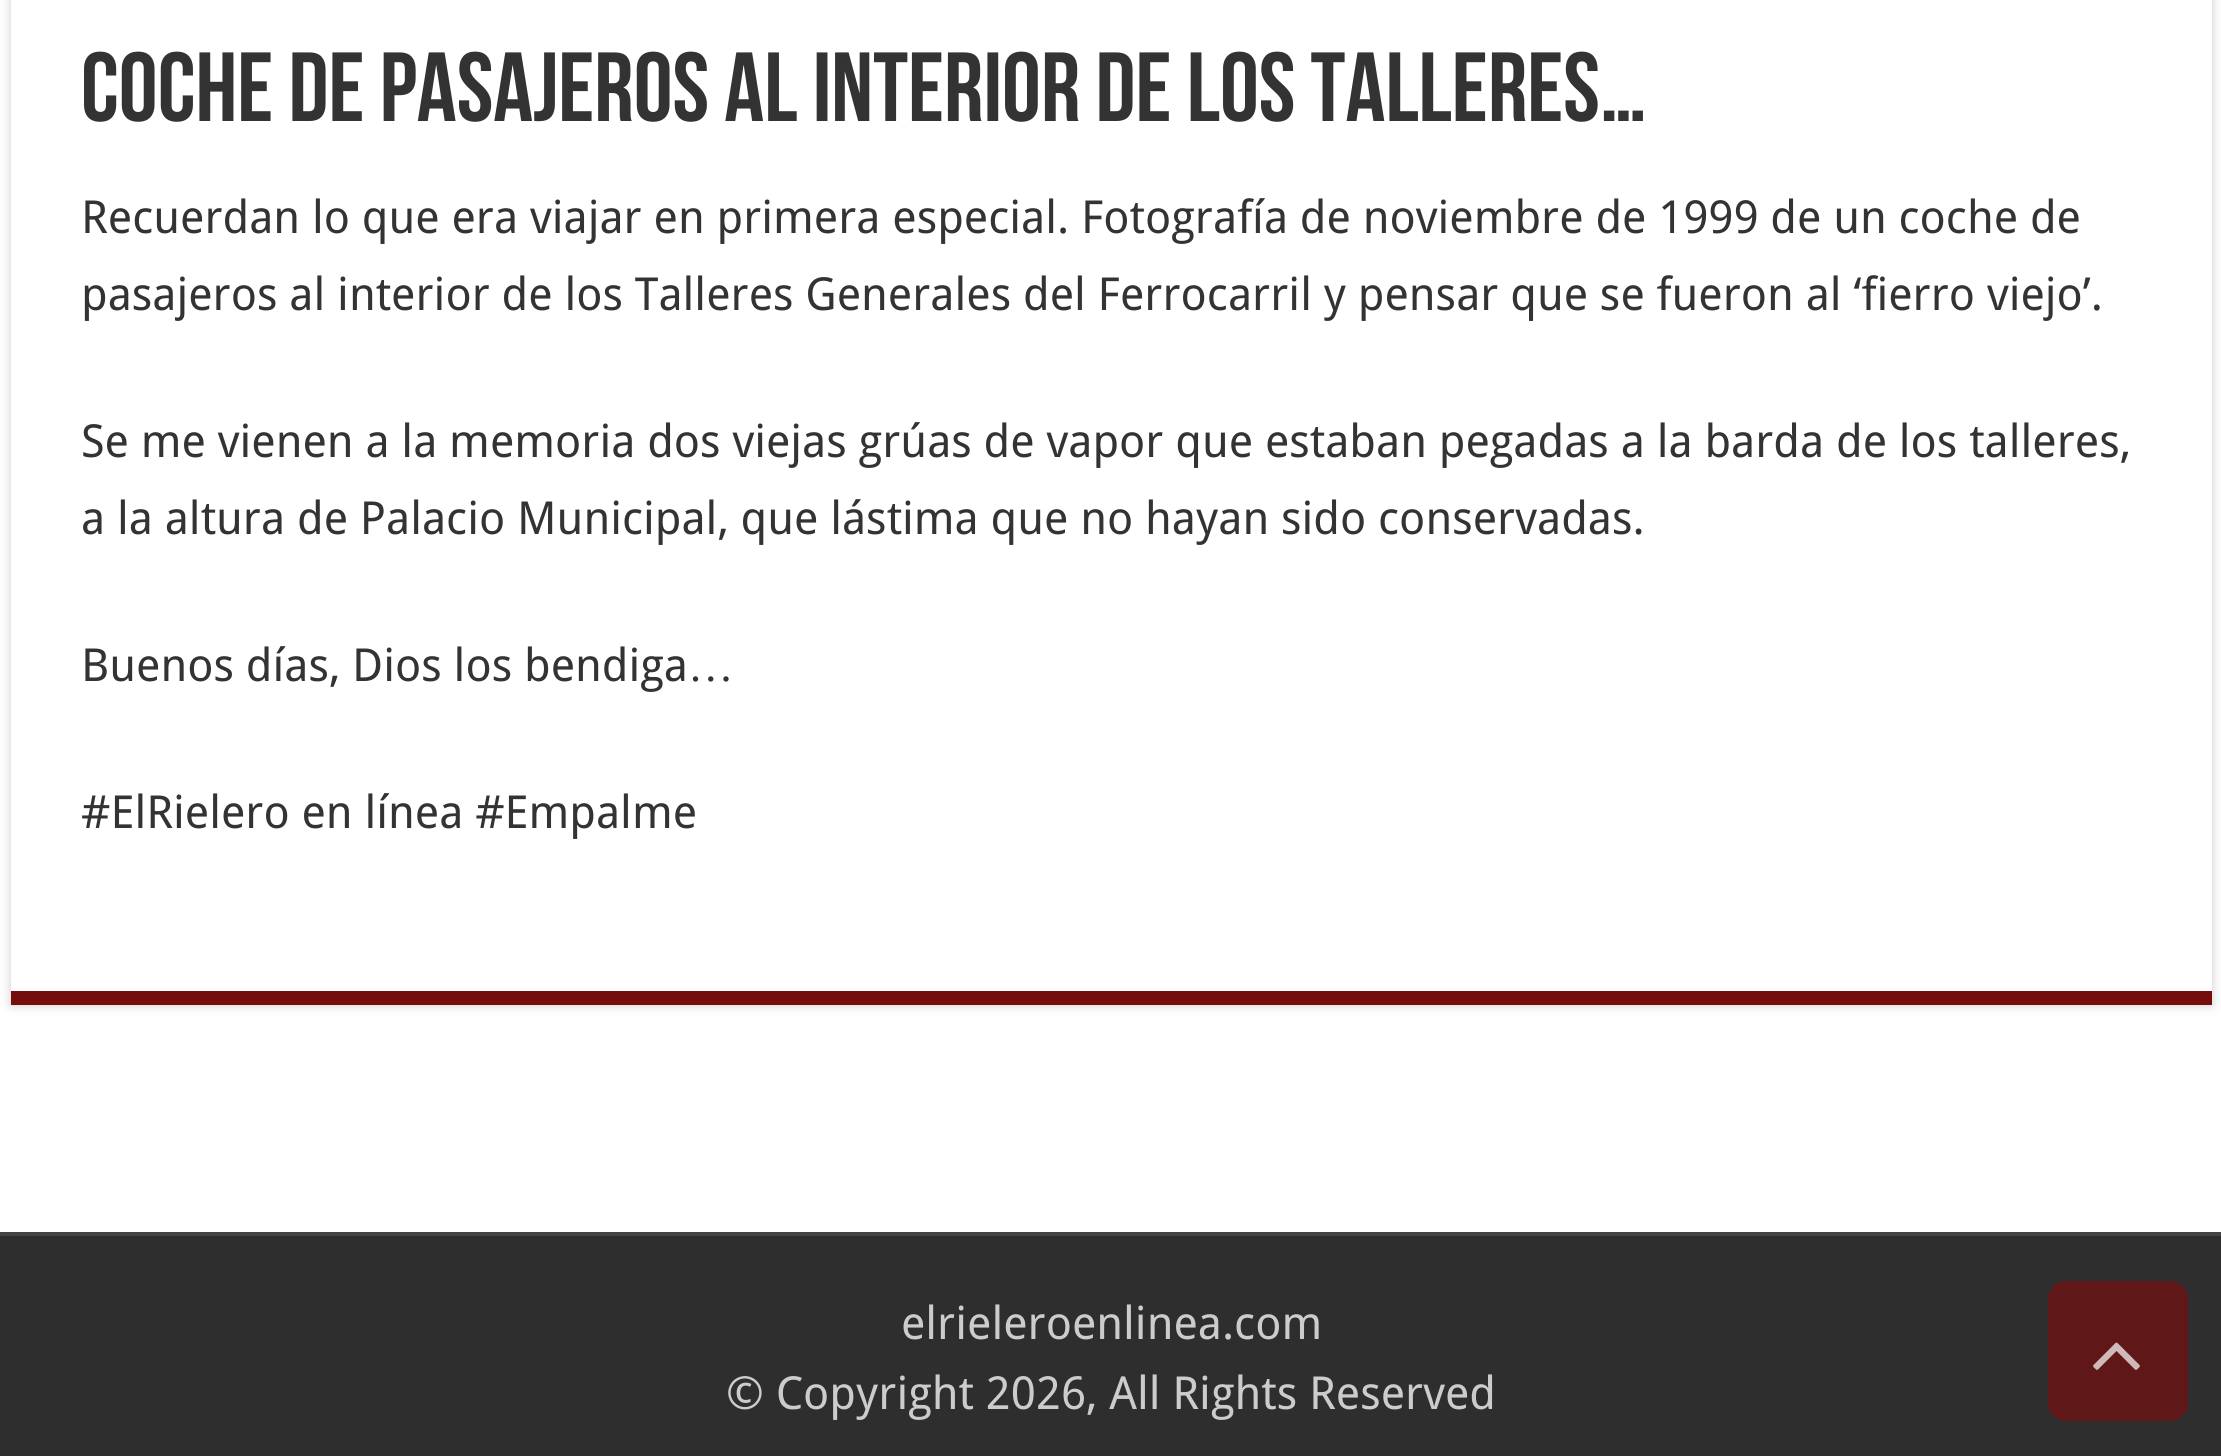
#include <cairo/cairo.h>
#include <math.h>
#include <stddef.h>

static cairo_t *cr;

static void use_color(int r, int g, int b) {
  cairo_set_source_rgb(cr, r / 255.0, g / 255.0, b / 255.0);
}

static void text(double x, double y, const char *s, const char *family, double size, int italic, int bold, int r, int g, int b) {
  cairo_select_font_face(cr, family, italic ? CAIRO_FONT_SLANT_ITALIC : CAIRO_FONT_SLANT_NORMAL,
    bold ? CAIRO_FONT_WEIGHT_BOLD : CAIRO_FONT_WEIGHT_NORMAL);
  cairo_set_font_size(cr, size);
  use_color(r, g, b);
  cairo_move_to(cr, x, y);
  cairo_show_text(cr, s);
}

static void box(double x, double y, double w, double h, int r, int g, int b) {
  use_color(r, g, b);
  cairo_rectangle(cr, x, y, w, h);
  cairo_fill(cr);
}

static void round_rect(double x, double y, double w, double h, double r) {
  cairo_new_sub_path(cr);
  cairo_arc(cr, x + w - r, y + h - r, r, 0, M_PI / 2);
  cairo_arc(cr, x + r, y + h - r, r, M_PI / 2, M_PI);
  cairo_arc(cr, x + r, y + r, r, M_PI, 1.5 * M_PI);
  cairo_arc(cr, x + w - r, y + r, r, 1.5 * M_PI, 2 * M_PI);
  cairo_close_path(cr);
}

static void shadow(double x, double y, double w, double h, double r, double blur, double alpha) {
  cairo_push_group_with_content(cr, CAIRO_CONTENT_ALPHA);
  cairo_set_operator(cr, CAIRO_OPERATOR_SOURCE);
  for (int i = 15; i >= -15 && fmin(w, h) + blur * i / 3 > 0; i -= 2) {
    double e = blur * i / 6;
    cairo_set_source_rgba(cr, 0, 0, 0, alpha * erfc((i - 1) / 8.5) / 2);
    round_rect(x - e, y - e, w + 2 * e, h + 2 * e, fmax(0, fmin(r + e + blur * .6, fmin(w, h) / 2 + e)));
    cairo_fill(cr);
  }
  cairo_pattern_t *soft = cairo_pop_group(cr);
  cairo_mask(cr, soft);
  cairo_pattern_destroy(soft);
}

static void picture(const char *path, double x, double y, double w, double h) {
  cairo_surface_t *image = cairo_image_surface_create_from_png(path);
  cairo_save(cr);
  cairo_set_source_surface(cr, image, x, y);
  cairo_rectangle(cr, x, y, w, h);
  cairo_fill(cr);
  cairo_restore(cr);
  cairo_surface_destroy(image);
}

static void draw(void) {
  use_color(255, 255, 255);
  cairo_paint(cr);
  use_color(202, 202, 202);
  shadow(11, -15, 2201, 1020, 0, 5, 1);
  box(11, 0, 2201, 991, 255, 255, 255);
  box(11, 991, 2201, 14, 117, 13, 13);
  box(0, 1236, 2221, 220, 46, 46, 46);
  box(0, 1232, 2221, 4, 68, 68, 68);
  use_color(96, 23, 23);
  round_rect(2048, 1281, 140, 140, 18);
  cairo_fill(cr);
  picture("img_01.png", 2093, 1342, 47, 28);
  text(81, 121, "Coche de pasajeros al interior de los Talleres…", "Bebas Neue", 98, 0, 1, 51, 51, 51);
  text(81, 233, "Recuerdan lo que era viajar en primera especial. Fotografía de noviembre de 1999 de un coche de", "Droid Sans", 45.5, 0, 0, 51, 51, 51);
  text(81, 310, "pasajeros al interior de los Talleres Generales del Ferrocarril y pensar que se fueron al ‘fierro viejo’.", "Droid Sans", 45.5, 0, 0, 51, 51, 51);
  text(81, 457, "Se me vienen a la memoria dos viejas grúas de vapor que estaban pegadas a la barda de los talleres,", "Droid Sans", 45.5, 0, 0, 51, 51, 51);
  text(81, 534, "a la altura de Palacio Municipal, que lástima que no hayan sido conservadas.", "Droid Sans", 45.5, 0, 0, 51, 51, 51);
  text(81, 681, "Buenos días, Dios los bendiga", "Droid Sans", 45.5, 0, 0, 51, 51, 51);
  text(688, 681, "…", "Liberation Serif", 45.5, 0, 0, 51, 51, 51);
  text(81, 828, "#ElRielero en línea #Empalme", "Droid Sans", 45.5, 0, 0, 51, 51, 51);
  text(901, 1339, "elrieleroenlinea.com", "Droid Sans", 45.5, 0, 0, 204, 204, 204);
  text(726, 1409, "© Copyright 2026, All Rights Reserved", "Droid Sans", 45.5, 0, 0, 204, 204, 204);
}

int main(void) {
  cairo_surface_t *surface = cairo_image_surface_create(CAIRO_FORMAT_RGB24, 2221, 1456);
  cr = cairo_create(surface);
  cairo_font_options_t *options = cairo_font_options_create();
  cairo_font_options_set_hint_metrics(options, CAIRO_HINT_METRICS_OFF);
  cairo_font_options_set_hint_style(options, CAIRO_HINT_STYLE_NONE);
  cairo_set_font_options(cr, options);
  cairo_set_miter_limit(cr, 4);
  draw();
  cairo_surface_write_to_png(surface, "out.png");
  cairo_font_options_destroy(options);
  cairo_destroy(cr);
  cairo_surface_destroy(surface);
  return 0;
}
